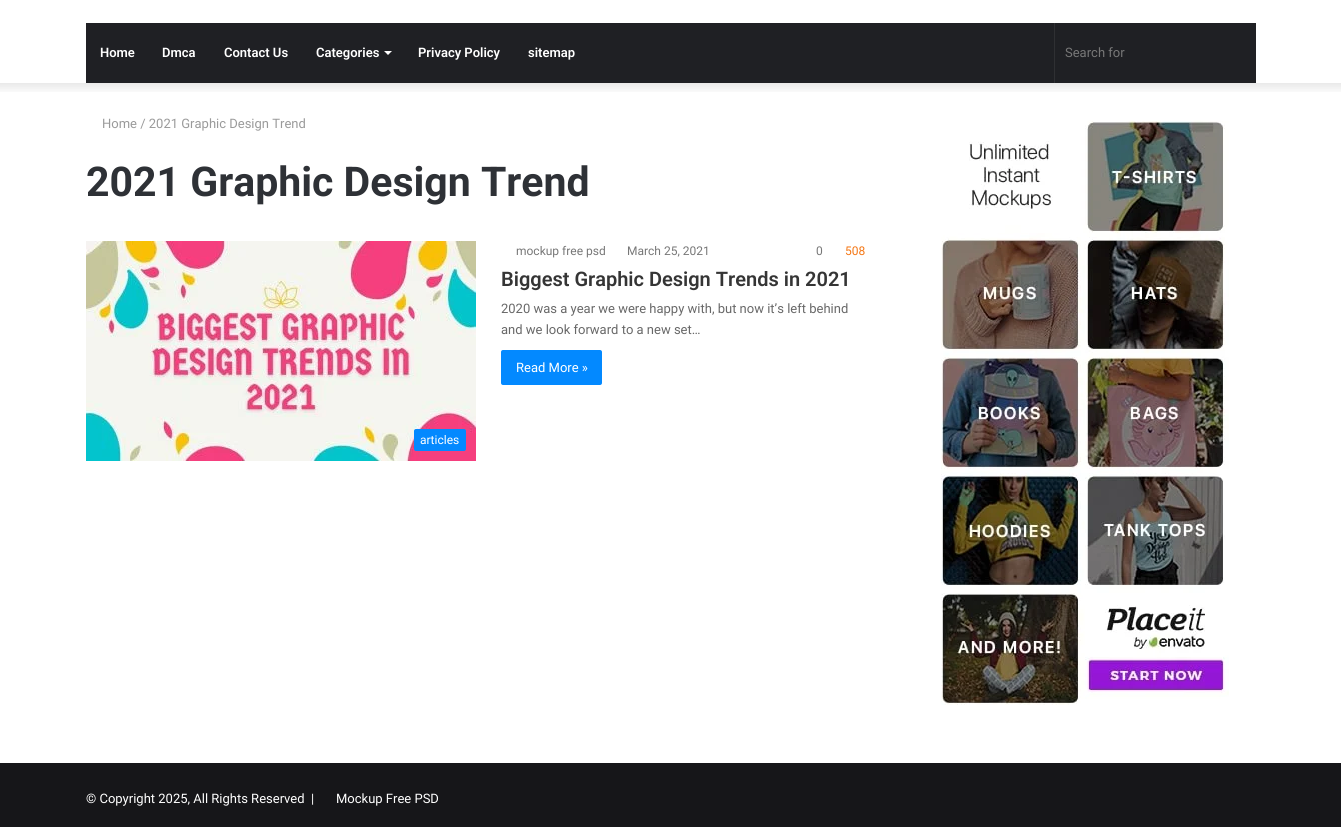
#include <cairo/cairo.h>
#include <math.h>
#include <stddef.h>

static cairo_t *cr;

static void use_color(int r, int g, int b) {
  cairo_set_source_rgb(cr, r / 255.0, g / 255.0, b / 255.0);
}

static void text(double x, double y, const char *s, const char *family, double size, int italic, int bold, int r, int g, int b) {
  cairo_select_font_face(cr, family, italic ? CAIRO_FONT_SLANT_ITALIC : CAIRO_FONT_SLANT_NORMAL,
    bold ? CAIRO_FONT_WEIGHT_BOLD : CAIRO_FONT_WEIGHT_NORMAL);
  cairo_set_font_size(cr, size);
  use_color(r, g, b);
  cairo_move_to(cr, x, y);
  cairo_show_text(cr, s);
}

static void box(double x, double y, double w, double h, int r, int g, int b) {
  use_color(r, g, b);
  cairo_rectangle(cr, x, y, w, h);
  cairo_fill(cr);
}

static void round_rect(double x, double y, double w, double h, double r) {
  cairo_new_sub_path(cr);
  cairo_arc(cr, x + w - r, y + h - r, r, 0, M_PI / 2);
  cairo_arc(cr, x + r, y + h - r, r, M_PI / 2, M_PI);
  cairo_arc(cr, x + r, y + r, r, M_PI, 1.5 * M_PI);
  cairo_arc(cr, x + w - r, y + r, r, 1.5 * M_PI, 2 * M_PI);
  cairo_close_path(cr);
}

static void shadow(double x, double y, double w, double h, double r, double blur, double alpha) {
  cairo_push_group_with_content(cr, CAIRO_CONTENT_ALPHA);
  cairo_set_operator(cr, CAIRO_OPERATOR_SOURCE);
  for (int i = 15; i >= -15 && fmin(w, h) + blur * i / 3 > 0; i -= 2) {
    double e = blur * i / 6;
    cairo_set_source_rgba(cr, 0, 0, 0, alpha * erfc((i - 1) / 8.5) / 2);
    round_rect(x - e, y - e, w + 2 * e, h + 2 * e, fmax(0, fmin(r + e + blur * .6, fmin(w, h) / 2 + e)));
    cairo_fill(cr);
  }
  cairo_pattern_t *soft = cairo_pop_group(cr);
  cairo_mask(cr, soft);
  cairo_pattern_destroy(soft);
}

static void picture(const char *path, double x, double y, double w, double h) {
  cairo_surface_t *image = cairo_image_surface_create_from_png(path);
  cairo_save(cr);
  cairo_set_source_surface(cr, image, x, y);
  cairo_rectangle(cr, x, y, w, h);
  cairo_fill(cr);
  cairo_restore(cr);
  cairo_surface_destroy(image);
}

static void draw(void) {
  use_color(255, 255, 255);
  cairo_paint(cr);
  cairo_save(cr);
  cairo_rectangle(cr, 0, 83, 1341, 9);
  cairo_clip(cr);
  use_color(0, 0, 0);
  shadow(-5, -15, 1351, 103, 0, 5, 0.1);
  cairo_restore(cr);
  box(86, 23, 1170, 60, 31, 32, 36);
  use_color(255, 255, 255);
  cairo_new_path(cr);
  cairo_move_to(cr, 384, 51);
  cairo_line_to(cr, 392, 51);
  cairo_line_to(cr, 388, 55);
  cairo_close_path(cr);
  cairo_fill(cr);
  box(1054, 23, 1, 60, 47, 48, 51);
  use_color(3, 137, 255);
  round_rect(501, 350, 101, 35, 2);
  cairo_fill(cr);
  picture("img_01.png", 86, 241, 390, 220);
  round_rect(414, 429, 52, 22, 2);
  cairo_fill(cr);
  picture("img_02.png", 941, 120, 288, 585);
  box(0, 763, 1341, 64, 22, 22, 25);
  text(100, 57, "Home", "Roboto SemiBold", 13, 0, 0, 255, 255, 255);
  text(162, 57, "Dmca", "Roboto SemiBold", 13, 0, 0, 255, 255, 255);
  text(224, 57, "Contact Us", "Roboto SemiBold", 13, 0, 0, 255, 255, 255);
  text(316, 57, "Categories", "Roboto SemiBold", 13, 0, 0, 255, 255, 255);
  text(418, 57, "Privacy Policy", "Roboto SemiBold", 13, 0, 0, 255, 255, 255);
  text(528, 57, "sitemap", "Roboto SemiBold", 13, 0, 0, 255, 255, 255);
  text(1065, 57, "Search for", "Roboto", 13, 0, 0, 119, 119, 119);
  text(102, 128, "Home / 2021 Graphic Design Trend", "Roboto", 13, 0, 0, 154, 154, 154);
  text(86, 196, "2021 Graphic Design Trend", "Roboto", 41, 0, 1, 46, 49, 54);
  text(516, 255, "mockup free psd", "Roboto", 12, 0, 0, 119, 119, 119);
  text(627, 255, "March 25, 2021", "Roboto", 12, 0, 0, 119, 119, 119);
  text(816, 255, "0", "Roboto", 12, 0, 0, 119, 119, 119);
  text(845, 255, "508", "Roboto", 12, 0, 0, 244, 118, 20);
  text(501, 286, "Biggest Graphic Design Trends in 2021", "Roboto SemiBold", 20, 0, 0, 53, 53, 53);
  text(501, 313, "2020 was a year we were happy with, but now it’s left behind", "Roboto", 13, 0, 0, 104, 104, 104);
  text(501, 334, "and we look forward to a new set…", "Roboto", 13, 0, 0, 104, 104, 104);
  text(516, 372, "Read More »", "Roboto", 13, 0, 0, 255, 255, 255);
  text(420, 444, "articles", "Roboto", 12, 0, 0, 255, 255, 255);
  text(86, 803, "© Copyright 2025, All Rights Reserved  |", "Roboto", 13, 0, 0, 255, 255, 255);
  text(336, 803, "Mockup Free PSD", "Roboto", 13, 0, 0, 255, 255, 255);
}

int main(void) {
  cairo_surface_t *surface = cairo_image_surface_create(CAIRO_FORMAT_RGB24, 1341, 827);
  cr = cairo_create(surface);
  cairo_font_options_t *options = cairo_font_options_create();
  cairo_font_options_set_hint_metrics(options, CAIRO_HINT_METRICS_OFF);
  cairo_font_options_set_hint_style(options, CAIRO_HINT_STYLE_NONE);
  cairo_set_font_options(cr, options);
  cairo_set_miter_limit(cr, 4);
  draw();
  cairo_surface_write_to_png(surface, "out.png");
  cairo_font_options_destroy(options);
  cairo_destroy(cr);
  cairo_surface_destroy(surface);
  return 0;
}
